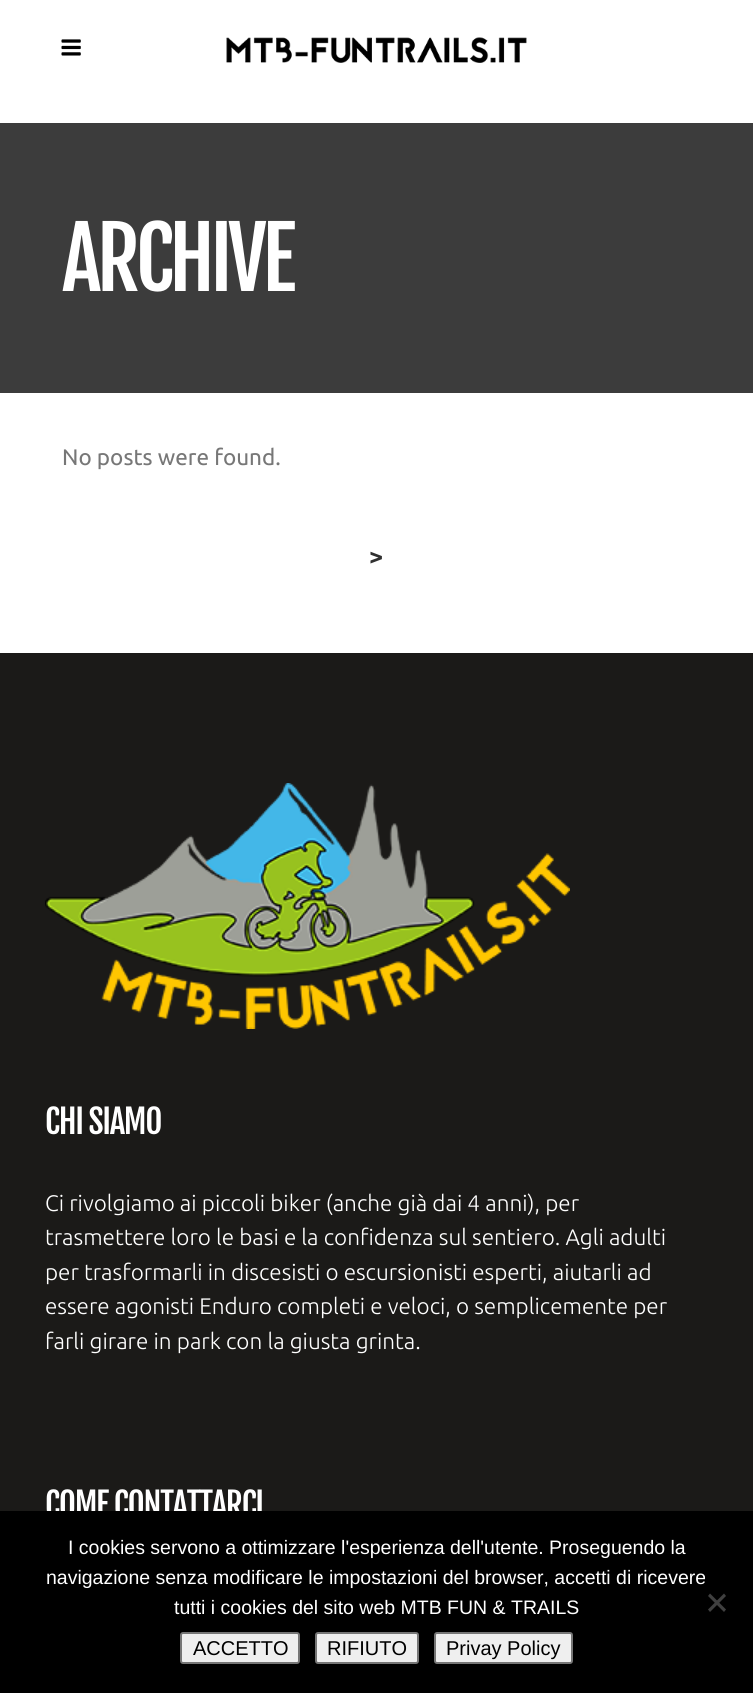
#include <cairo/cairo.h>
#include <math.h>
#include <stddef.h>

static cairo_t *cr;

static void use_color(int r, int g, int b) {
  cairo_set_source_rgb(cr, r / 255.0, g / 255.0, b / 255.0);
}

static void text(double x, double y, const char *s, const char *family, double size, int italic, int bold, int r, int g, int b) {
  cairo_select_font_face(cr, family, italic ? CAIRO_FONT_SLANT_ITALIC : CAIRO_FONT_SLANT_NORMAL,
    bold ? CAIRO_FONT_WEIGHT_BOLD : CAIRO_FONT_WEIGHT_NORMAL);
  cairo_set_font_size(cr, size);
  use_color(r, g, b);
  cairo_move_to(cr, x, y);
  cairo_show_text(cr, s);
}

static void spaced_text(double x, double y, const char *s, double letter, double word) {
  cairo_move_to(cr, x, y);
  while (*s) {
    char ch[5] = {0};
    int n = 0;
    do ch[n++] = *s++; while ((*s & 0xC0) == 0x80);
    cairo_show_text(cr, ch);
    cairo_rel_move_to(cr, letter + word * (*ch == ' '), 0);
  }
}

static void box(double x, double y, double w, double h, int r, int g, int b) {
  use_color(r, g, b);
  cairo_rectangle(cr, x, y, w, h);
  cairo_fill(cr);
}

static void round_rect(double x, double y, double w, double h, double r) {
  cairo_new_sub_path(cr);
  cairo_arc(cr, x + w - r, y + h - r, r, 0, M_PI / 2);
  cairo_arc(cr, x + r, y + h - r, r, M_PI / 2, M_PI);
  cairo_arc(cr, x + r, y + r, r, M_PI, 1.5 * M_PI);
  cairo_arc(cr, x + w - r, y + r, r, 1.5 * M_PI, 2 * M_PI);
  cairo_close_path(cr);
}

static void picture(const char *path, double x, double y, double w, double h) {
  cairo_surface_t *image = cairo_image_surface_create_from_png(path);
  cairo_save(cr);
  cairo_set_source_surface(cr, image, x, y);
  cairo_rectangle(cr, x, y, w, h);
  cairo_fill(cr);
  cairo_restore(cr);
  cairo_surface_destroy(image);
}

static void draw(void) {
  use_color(255, 255, 255);
  cairo_paint(cr);
  picture("img_01.png", 61, 39, 20, 17);
  picture("img_02.png", 226, 37, 301, 26);
  box(0, 123, 753, 270, 60, 60, 60);
  box(0, 653, 753, 858, 27, 26, 24);
  picture("img_03.png", 45, 783, 525, 246);
  cairo_select_font_face(cr, "Fjalla One", CAIRO_FONT_SLANT_NORMAL, CAIRO_FONT_WEIGHT_NORMAL);
  cairo_set_font_size(cr, 84);
  use_color(255, 255, 255);
  spaced_text(62, 291, "ARCHIVE", -4.5, 0);
  text(62, 465, "No posts were found.", "Ubuntu", 22.5, 0, 0, 119, 119, 119);
  text(369, 566, ">", "Montserrat", 24, 0, 1, 48, 48, 48);
  cairo_select_font_face(cr, "Fjalla One", CAIRO_FONT_SLANT_NORMAL, CAIRO_FONT_WEIGHT_NORMAL);
  cairo_set_font_size(cr, 33);
  use_color(255, 255, 255);
  spaced_text(45, 1134, "CHI SIAMO", -1.3, 0);
  text(45, 1211, "Ci rivolgiamo ai piccoli biker (anche già dai 4 anni), per", "Ubuntu Light", 22.5, 0, 0, 255, 255, 255);
  text(45, 1245, "trasmettere loro le basi e la confidenza sul sentiero. Agli adulti", "Ubuntu Light", 22.5, 0, 0, 255, 255, 255);
  text(45, 1280, "per trasformarli in discesisti o escursionisti esperti, aiutarli ad", "Ubuntu Light", 22.5, 0, 0, 255, 255, 255);
  text(45, 1314, "essere agonisti Enduro completi e veloci, o semplicemente per", "Ubuntu Light", 22.5, 0, 0, 255, 255, 255);
  text(45, 1349, "farli girare in park con la giusta grinta.", "Ubuntu Light", 22.5, 0, 0, 255, 255, 255);
  cairo_select_font_face(cr, "Fjalla One", CAIRO_FONT_SLANT_NORMAL, CAIRO_FONT_WEIGHT_NORMAL);
  cairo_set_font_size(cr, 33);
  spaced_text(45, 1517, "COME CONTATTARCI", -1.3, 0);
  box(0, 1511, 753, 182, 0, 0, 0);
  text(68, 1554, "I cookies servono a ottimizzare l'esperienza dell'utente. Proseguendo la", "Liberation Sans", 19.5, 0, 0, 255, 255, 255);
  text(46, 1584, "navigazione senza modificare le impostazioni del browser, accetti di ricevere", "Liberation Sans", 19.5, 0, 0, 255, 255, 255);
  text(174, 1614, "tutti i cookies del sito web MTB FUN & TRAILS", "Liberation Sans", 19.5, 0, 0, 255, 255, 255);
  use_color(64, 64, 64);
  cairo_new_path(cr);
  cairo_move_to(cr, 724, 1593.5);
  cairo_line_to(cr, 726, 1596);
  cairo_line_to(cr, 710, 1612);
  cairo_line_to(cr, 708, 1609.5);
  cairo_close_path(cr);
  cairo_fill(cr);
  cairo_new_path(cr);
  cairo_move_to(cr, 708, 1596);
  cairo_line_to(cr, 710, 1593.5);
  cairo_line_to(cr, 726, 1609.5);
  cairo_line_to(cr, 724, 1612);
  cairo_close_path(cr);
  cairo_fill(cr);
  use_color(239, 239, 239);
  round_rect(181, 1633, 118, 30, 2);
  cairo_fill_preserve(cr);
  use_color(118, 118, 118);
  cairo_stroke(cr);
  text(193, 1655, "ACCETTO", "Liberation Sans", 20, 0, 0, 0, 0, 0);
  use_color(239, 239, 239);
  round_rect(316, 1633, 102, 30, 2);
  cairo_fill_preserve(cr);
  use_color(118, 118, 118);
  cairo_stroke(cr);
  text(327, 1655, "RIFIUTO", "Liberation Sans", 20, 0, 0, 0, 0, 0);
  use_color(239, 239, 239);
  round_rect(435, 1633, 137, 30, 2);
  cairo_fill_preserve(cr);
  use_color(118, 118, 118);
  cairo_stroke(cr);
  text(446, 1655, "Privay Policy", "Liberation Sans", 20, 0, 0, 0, 0, 0);
}

int main(void) {
  cairo_surface_t *surface = cairo_image_surface_create(CAIRO_FORMAT_RGB24, 753, 1693);
  cr = cairo_create(surface);
  cairo_font_options_t *options = cairo_font_options_create();
  cairo_font_options_set_hint_metrics(options, CAIRO_HINT_METRICS_OFF);
  cairo_font_options_set_hint_style(options, CAIRO_HINT_STYLE_NONE);
  cairo_set_font_options(cr, options);
  cairo_set_miter_limit(cr, 4);
  draw();
  cairo_surface_write_to_png(surface, "out.png");
  cairo_font_options_destroy(options);
  cairo_destroy(cr);
  cairo_surface_destroy(surface);
  return 0;
}
